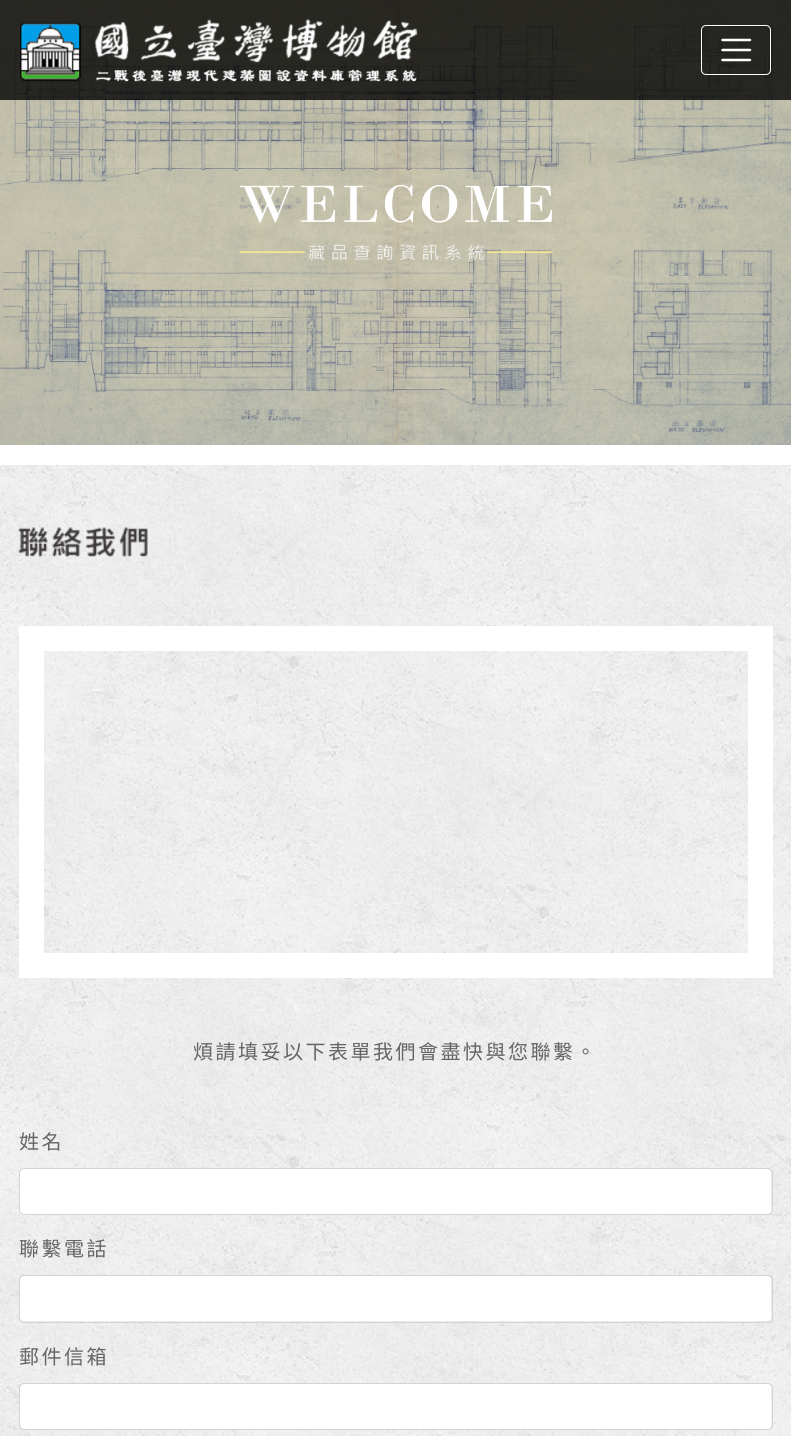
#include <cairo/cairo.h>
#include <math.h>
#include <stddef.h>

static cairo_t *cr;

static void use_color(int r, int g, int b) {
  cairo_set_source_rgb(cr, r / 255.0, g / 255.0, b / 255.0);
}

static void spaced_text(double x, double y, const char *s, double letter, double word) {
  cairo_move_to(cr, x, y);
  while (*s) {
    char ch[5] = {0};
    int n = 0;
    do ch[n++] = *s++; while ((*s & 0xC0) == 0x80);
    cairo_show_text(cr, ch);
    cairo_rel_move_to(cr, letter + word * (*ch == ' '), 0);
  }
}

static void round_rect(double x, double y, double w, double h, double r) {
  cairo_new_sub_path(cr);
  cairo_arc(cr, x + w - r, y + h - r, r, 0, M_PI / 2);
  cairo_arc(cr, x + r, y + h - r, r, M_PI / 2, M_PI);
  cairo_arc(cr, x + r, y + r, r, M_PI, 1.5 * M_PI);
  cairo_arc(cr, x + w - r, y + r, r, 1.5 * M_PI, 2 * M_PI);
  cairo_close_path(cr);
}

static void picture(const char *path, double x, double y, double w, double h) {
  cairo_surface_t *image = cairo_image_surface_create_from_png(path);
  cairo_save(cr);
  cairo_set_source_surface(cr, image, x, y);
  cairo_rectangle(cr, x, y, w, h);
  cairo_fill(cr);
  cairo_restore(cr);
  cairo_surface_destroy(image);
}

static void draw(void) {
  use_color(255, 255, 255);
  cairo_paint(cr);
  picture("img_02.png", 0, 0, 791, 445);
  cairo_set_source_rgba(cr, 0, 0, 0, 0.8);
  cairo_rectangle(cr, 0, 0, 791, 100);
  cairo_fill(cr);
  picture("img_01.png", 20, 19, 398, 63);
  round_rect(701.5, 25.5, 69, 49, 4.5);
  use_color(255, 255, 255);
  cairo_set_line_width(cr, 1);
  cairo_stroke(cr);
  cairo_new_path(cr);
  cairo_move_to(cr, 722.5, 40);
  cairo_line_to(cr, 750, 40);
  cairo_move_to(cr, 722.5, 50);
  cairo_line_to(cr, 750, 50);
  cairo_move_to(cr, 722.5, 60);
  cairo_line_to(cr, 750, 60);
  cairo_set_line_width(cr, 2.5);
  cairo_set_line_cap(cr, CAIRO_LINE_CAP_ROUND);
  cairo_stroke(cr);
  picture("img_03.png", 240, 185, 313, 75);
  picture("img_04.png", 0, 465, 791, 971);
  picture("img_05.png", 18, 527, 130, 30);
  cairo_rectangle(cr, 31.5, 638.5, 729, 327);
  cairo_set_line_width(cr, 25);
  cairo_set_line_cap(cr, CAIRO_LINE_CAP_BUTT);
  cairo_stroke(cr);
  round_rect(20, 1169, 751, 45, 4);
  cairo_fill(cr);
  round_rect(19.5, 1168.5, 753, 46, 4.5);
  use_color(206, 212, 218);
  cairo_set_line_width(cr, 1);
  cairo_stroke(cr);
  use_color(255, 255, 255);
  round_rect(20, 1276, 751, 45, 4);
  cairo_fill(cr);
  round_rect(19.5, 1275.5, 753, 47, 4.5);
  use_color(206, 212, 218);
  cairo_stroke(cr);
  use_color(255, 255, 255);
  round_rect(20, 1384, 751, 45, 4);
  cairo_fill(cr);
  round_rect(19.5, 1383.5, 753, 46, 4.5);
  use_color(206, 212, 218);
  cairo_stroke(cr);
  cairo_select_font_face(cr, "Noto Sans CJK TC", CAIRO_FONT_SLANT_NORMAL, CAIRO_FONT_WEIGHT_NORMAL);
  cairo_set_font_size(cr, 20);
  use_color(100, 101, 101);
  spaced_text(193, 1059, "煩請填妥以下表單我們會盡快與您聯繫。", 2.5, 0);
  spaced_text(19, 1149, "姓名", 2.5, 0);
  spaced_text(19, 1256, "聯繫電話", 2.5, 0);
  spaced_text(19, 1364, "郵件信箱", 2.5, 0);
}

int main(void) {
  cairo_surface_t *surface = cairo_image_surface_create(CAIRO_FORMAT_RGB24, 791, 1436);
  cr = cairo_create(surface);
  cairo_font_options_t *options = cairo_font_options_create();
  cairo_font_options_set_hint_metrics(options, CAIRO_HINT_METRICS_OFF);
  cairo_font_options_set_hint_style(options, CAIRO_HINT_STYLE_NONE);
  cairo_set_font_options(cr, options);
  cairo_set_miter_limit(cr, 4);
  draw();
  cairo_surface_write_to_png(surface, "out.png");
  cairo_font_options_destroy(options);
  cairo_destroy(cr);
  cairo_surface_destroy(surface);
  return 0;
}
